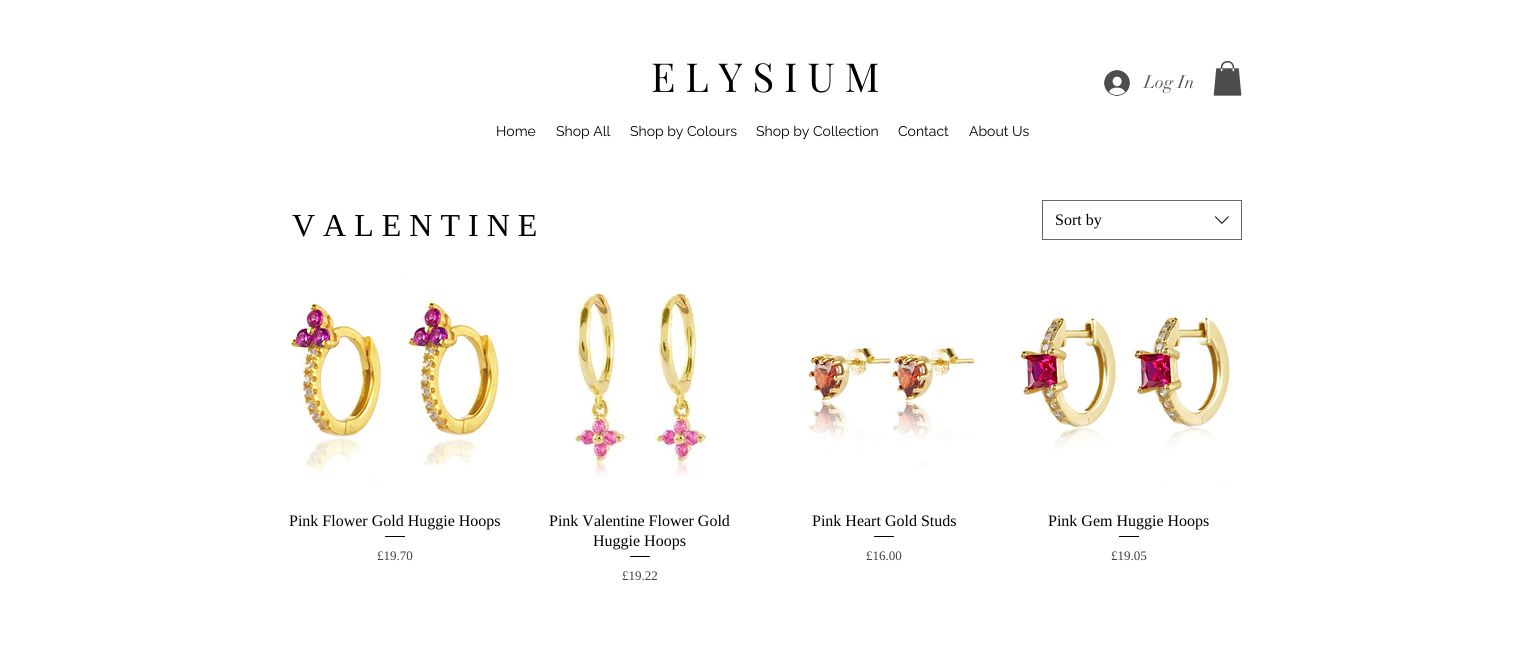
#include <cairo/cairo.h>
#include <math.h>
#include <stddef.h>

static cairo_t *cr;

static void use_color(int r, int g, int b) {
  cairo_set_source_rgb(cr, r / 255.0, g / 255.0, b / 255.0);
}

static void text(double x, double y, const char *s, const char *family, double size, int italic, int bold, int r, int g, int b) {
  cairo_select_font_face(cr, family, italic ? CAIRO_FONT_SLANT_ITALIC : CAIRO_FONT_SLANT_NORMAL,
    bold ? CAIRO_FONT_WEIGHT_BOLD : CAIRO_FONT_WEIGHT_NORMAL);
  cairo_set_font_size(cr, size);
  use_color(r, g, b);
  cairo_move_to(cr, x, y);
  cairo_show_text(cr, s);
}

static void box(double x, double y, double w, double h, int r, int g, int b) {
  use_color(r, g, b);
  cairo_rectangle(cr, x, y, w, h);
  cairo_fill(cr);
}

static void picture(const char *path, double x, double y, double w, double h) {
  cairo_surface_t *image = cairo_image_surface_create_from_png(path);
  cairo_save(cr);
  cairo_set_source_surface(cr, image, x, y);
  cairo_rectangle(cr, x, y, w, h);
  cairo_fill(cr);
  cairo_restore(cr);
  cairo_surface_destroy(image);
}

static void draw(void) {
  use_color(255, 255, 255);
  cairo_paint(cr);
  picture("img_01.png", 1104, 70, 26, 26);
  picture("img_02.png", 1213, 61, 29, 35);
  cairo_rectangle(cr, 1042.5, 200.5, 199, 39);
  use_color(102, 102, 102);
  cairo_set_line_width(cr, 1);
  cairo_stroke(cr);
  picture("img_03.png", 1214, 216, 15, 8);
  picture("img_04.png", 289, 275, 211, 209);
  box(385, 536, 20, 1, 0, 0, 0);
  picture("img_05.png", 574, 293, 137, 184);
  box(630, 556, 20, 1, 0, 0, 0);
  picture("img_06.png", 807, 344, 171, 123);
  box(874, 536, 20, 1, 0, 0, 0);
  picture("img_07.png", 1019, 315, 212, 173);
  box(1119, 536, 20, 1, 0, 0, 0);
  text(651, 92, "E L Y S I U M", "Playfair Display", 40, 0, 0, 0, 0, 0);
  text(1144, 88, "Log In", "didot", 18, 0, 0, 77, 77, 77);
  text(496, 136, "Home", "Raleway", 14, 0, 0, 0, 0, 0);
  text(556, 136, "Shop All", "Raleway", 14, 0, 0, 0, 0, 0);
  text(630, 136, "Shop by Colours", "Raleway", 14, 0, 0, 0, 0, 0);
  text(756, 136, "Shop by Collection", "Raleway", 14, 0, 0, 0, 0, 0);
  text(898, 136, "Contact", "Raleway", 14, 0, 0, 0, 0, 0);
  text(969, 136, "About Us", "Raleway", 14, 0, 0, 0, 0, 0);
  text(1055, 225, "Sort by", "Liberation Serif", 16, 0, 0, 0, 0, 0);
  text(289, 526, "Pink Flower Gold Huggie Hoops", "Liberation Serif", 16, 0, 0, 0, 0, 0);
  text(377, 560, "£19.70", "Liberation Serif", 13, 0, 0, 64, 64, 64);
  text(549, 526, "Pink Valentine Flower Gold", "Liberation Serif", 16, 0, 0, 0, 0, 0);
  text(593, 546, "Huggie Hoops", "Liberation Serif", 16, 0, 0, 0, 0, 0);
  text(622, 580, "£19.22", "Liberation Serif", 13, 0, 0, 64, 64, 64);
  text(812, 526, "Pink Heart Gold Studs", "Liberation Serif", 16, 0, 0, 0, 0, 0);
  text(866, 560, "£16.00", "Liberation Serif", 13, 0, 0, 64, 64, 64);
  text(1048, 526, "Pink Gem Huggie Hoops", "Liberation Serif", 16, 0, 0, 0, 0, 0);
  text(1111, 560, "£19.05", "Liberation Serif", 13, 0, 0, 64, 64, 64);
  text(292, 236, "V A L E N T I N E", "Liberation Serif", 32, 0, 0, 0, 0, 0);
}

int main(void) {
  cairo_surface_t *surface = cairo_image_surface_create(CAIRO_FORMAT_RGB24, 1524, 658);
  cr = cairo_create(surface);
  cairo_font_options_t *options = cairo_font_options_create();
  cairo_font_options_set_hint_metrics(options, CAIRO_HINT_METRICS_OFF);
  cairo_font_options_set_hint_style(options, CAIRO_HINT_STYLE_NONE);
  cairo_set_font_options(cr, options);
  cairo_set_miter_limit(cr, 4);
  draw();
  cairo_surface_write_to_png(surface, "out.png");
  cairo_font_options_destroy(options);
  cairo_destroy(cr);
  cairo_surface_destroy(surface);
  return 0;
}
